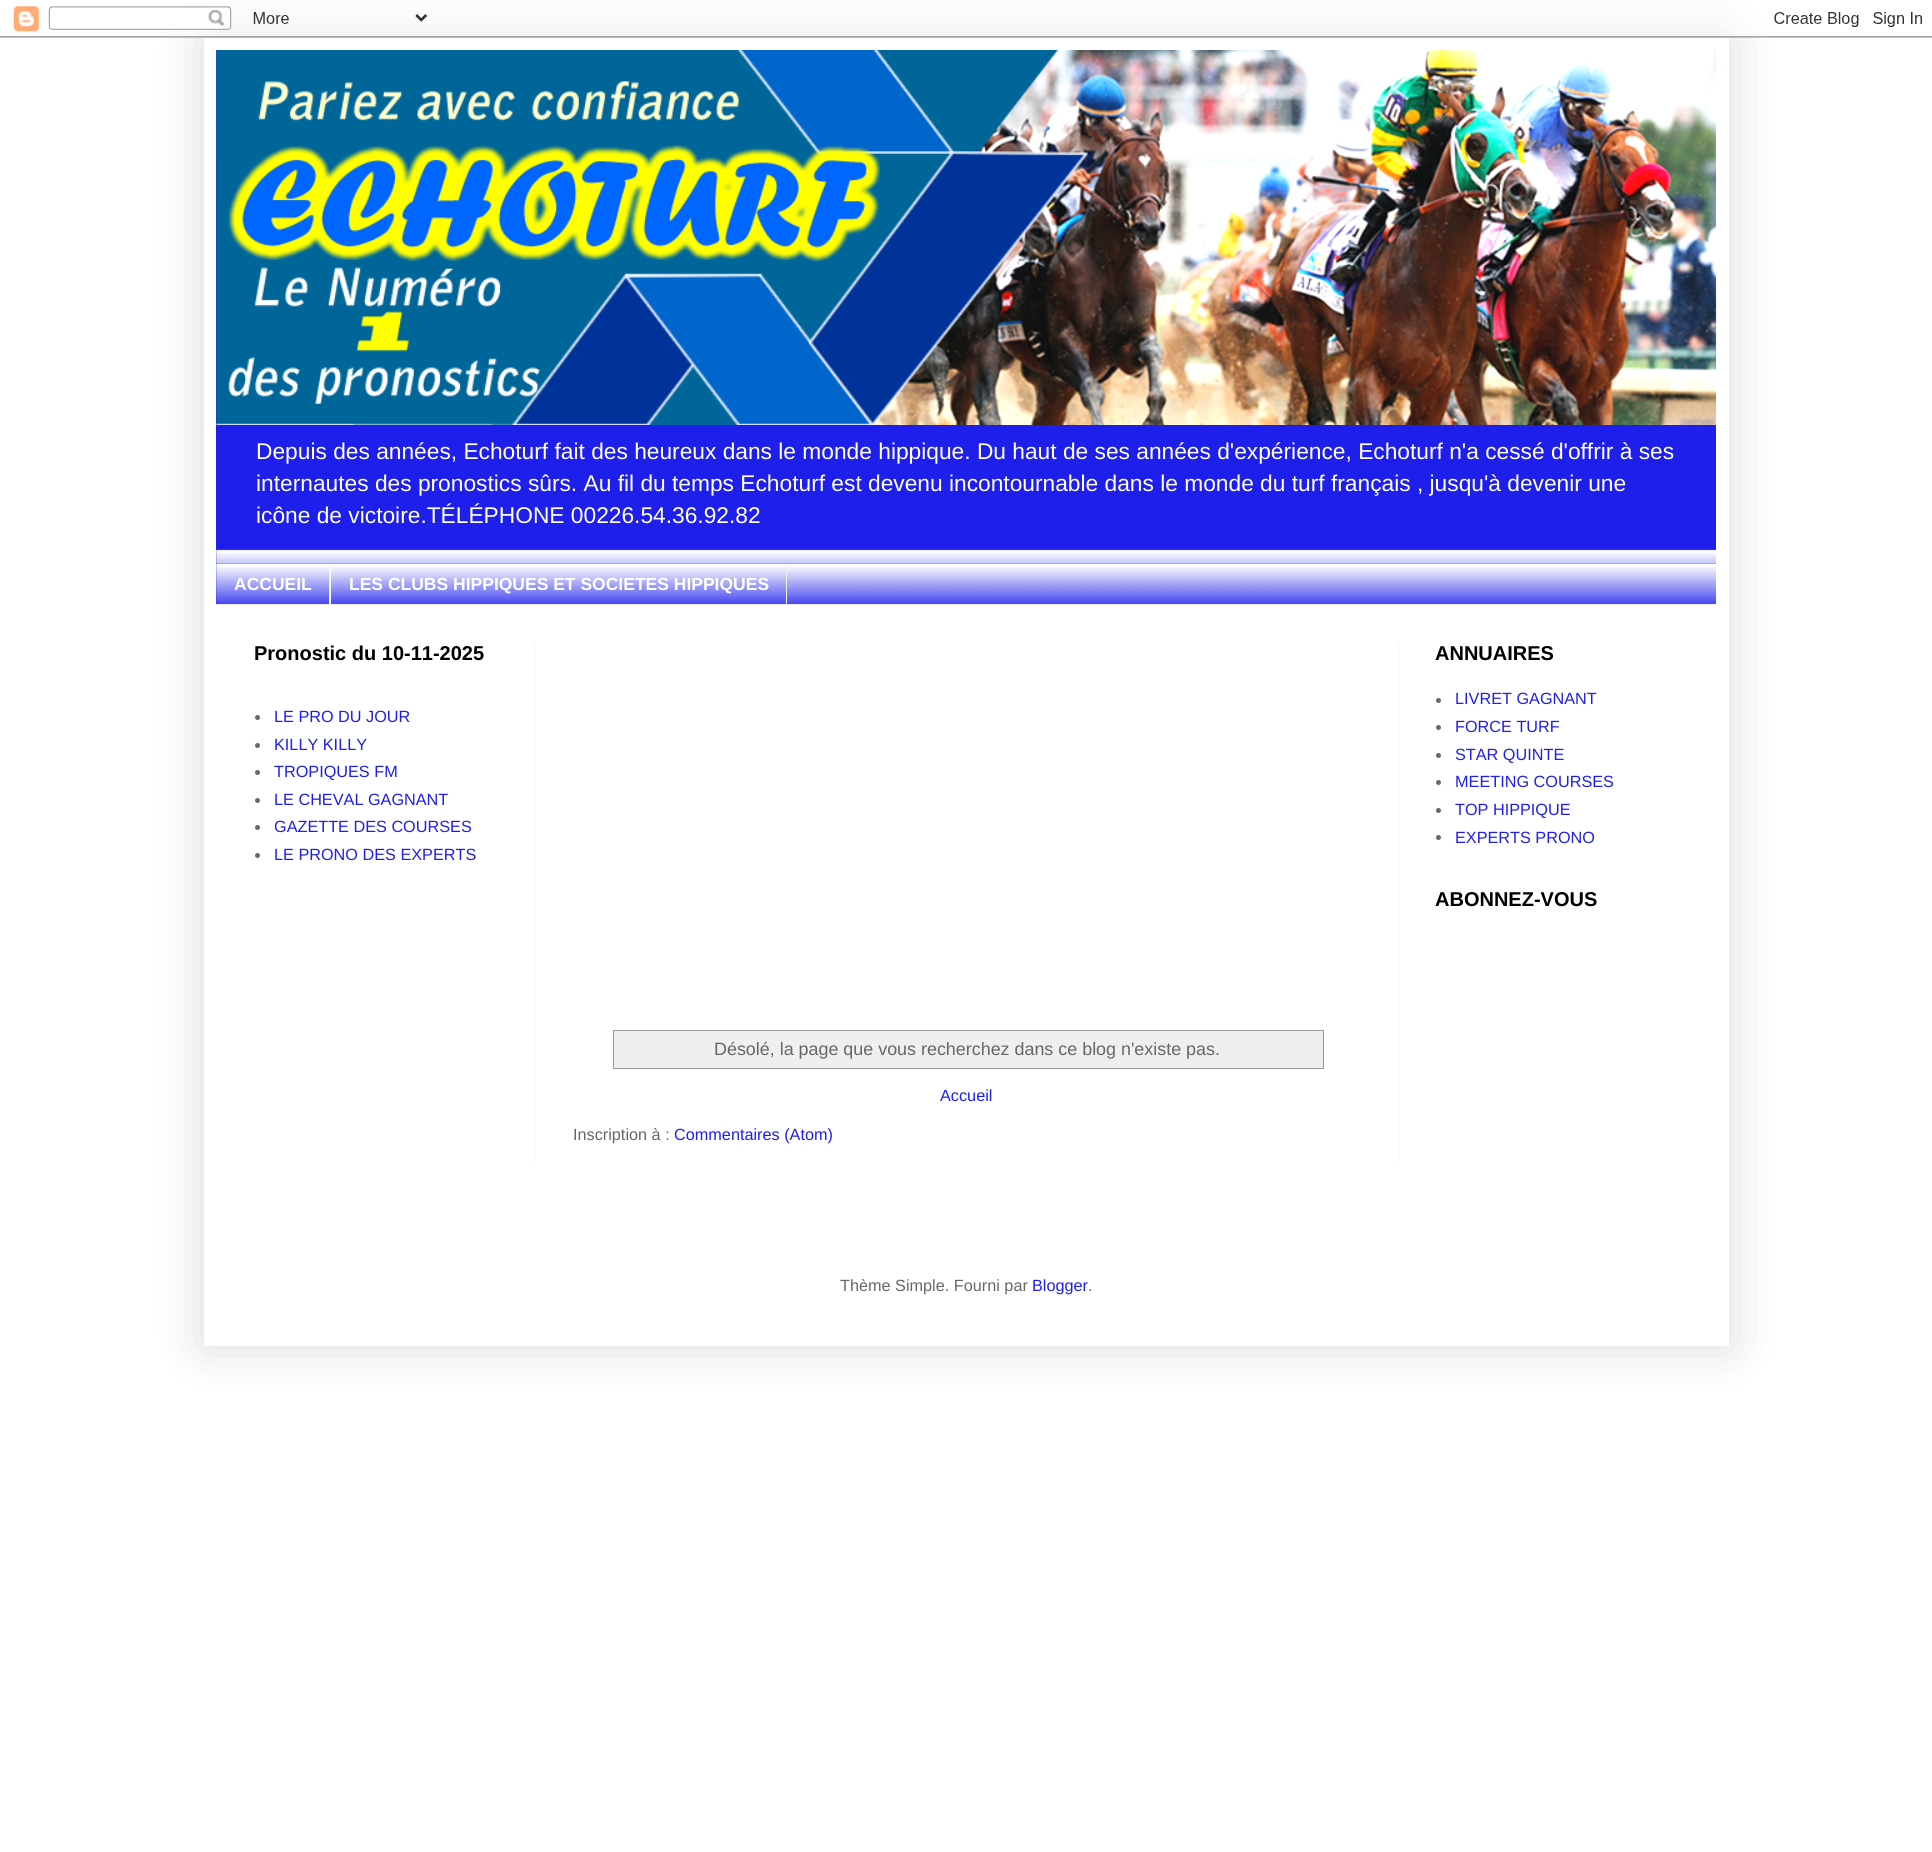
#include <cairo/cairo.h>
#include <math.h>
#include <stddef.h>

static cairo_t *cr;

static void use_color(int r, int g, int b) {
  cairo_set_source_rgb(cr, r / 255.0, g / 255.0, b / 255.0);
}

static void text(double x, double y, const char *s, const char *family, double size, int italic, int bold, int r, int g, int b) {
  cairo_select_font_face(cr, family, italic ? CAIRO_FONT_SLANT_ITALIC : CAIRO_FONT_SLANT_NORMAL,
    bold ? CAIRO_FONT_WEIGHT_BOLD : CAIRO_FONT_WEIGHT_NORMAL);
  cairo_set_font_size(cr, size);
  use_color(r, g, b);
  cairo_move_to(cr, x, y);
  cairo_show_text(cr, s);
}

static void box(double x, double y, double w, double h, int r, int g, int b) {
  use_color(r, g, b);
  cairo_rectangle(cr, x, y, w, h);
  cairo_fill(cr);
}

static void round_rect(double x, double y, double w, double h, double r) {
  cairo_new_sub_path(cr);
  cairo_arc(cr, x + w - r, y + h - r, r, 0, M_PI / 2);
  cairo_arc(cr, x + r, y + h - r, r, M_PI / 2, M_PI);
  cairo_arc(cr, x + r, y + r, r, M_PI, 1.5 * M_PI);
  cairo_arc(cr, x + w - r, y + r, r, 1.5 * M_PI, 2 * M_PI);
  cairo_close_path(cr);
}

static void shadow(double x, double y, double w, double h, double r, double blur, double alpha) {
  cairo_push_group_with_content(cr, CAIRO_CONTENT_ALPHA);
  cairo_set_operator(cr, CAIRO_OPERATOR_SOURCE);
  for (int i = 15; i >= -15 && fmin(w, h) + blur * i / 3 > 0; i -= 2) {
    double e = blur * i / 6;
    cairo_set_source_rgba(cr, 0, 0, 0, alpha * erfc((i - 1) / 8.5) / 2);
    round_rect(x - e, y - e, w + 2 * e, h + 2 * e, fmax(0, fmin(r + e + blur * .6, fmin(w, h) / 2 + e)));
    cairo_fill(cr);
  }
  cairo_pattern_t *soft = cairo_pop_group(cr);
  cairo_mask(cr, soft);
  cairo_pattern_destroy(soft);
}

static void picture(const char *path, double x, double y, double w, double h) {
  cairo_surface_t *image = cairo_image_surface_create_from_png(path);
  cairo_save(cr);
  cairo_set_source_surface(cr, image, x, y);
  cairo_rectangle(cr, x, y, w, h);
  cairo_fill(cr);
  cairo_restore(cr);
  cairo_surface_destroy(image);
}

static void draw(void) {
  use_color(255, 255, 255);
  cairo_paint(cr);
  use_color(0, 0, 0);
  shadow(204, 38, 1525, 1308, 0, 25, 0.15);
  picture("img_01.png", 0, 6, 1932, 32);
  box(204, 38, 1525, 1308, 255, 255, 255);
  box(216, 50, 1500, 554, 31, 31, 236);
  picture("img_02.png", 216, 50, 1500, 514);
  picture("img_03.png", 216, 50, 1501, 375);
  picture("img_04.png", 216, 563, 1500, 41);
  box(216, 604, 1500, 1, 238, 238, 238);
  box(329, 564, 1, 40, 238, 238, 238);
  box(786, 564, 1, 40, 238, 238, 238);
  box(330, 564, 1, 40, 255, 255, 255);
  box(534, 643, 1, 520, 244, 244, 244);
  box(1398, 643, 1, 520, 244, 244, 244);
  use_color(103, 103, 103);
  cairo_arc(cr, 257.5, 717.5, 2.5, 0, 2 * M_PI);
  cairo_fill(cr);
  cairo_arc(cr, 257.5, 745.5, 2.5, 0, 2 * M_PI);
  cairo_fill(cr);
  cairo_arc(cr, 257.5, 772.5, 2.5, 0, 2 * M_PI);
  cairo_fill(cr);
  cairo_arc(cr, 257.5, 800.5, 2.5, 0, 2 * M_PI);
  cairo_fill(cr);
  cairo_arc(cr, 257.5, 827.5, 2.5, 0, 2 * M_PI);
  cairo_fill(cr);
  cairo_arc(cr, 257.5, 855.5, 2.5, 0, 2 * M_PI);
  cairo_fill(cr);
  cairo_arc(cr, 1438.5, 700.5, 2.5, 0, 2 * M_PI);
  cairo_fill(cr);
  cairo_arc(cr, 1438.5, 727.5, 2.5, 0, 2 * M_PI);
  cairo_fill(cr);
  cairo_arc(cr, 1438.5, 755.5, 2.5, 0, 2 * M_PI);
  cairo_fill(cr);
  cairo_arc(cr, 1438.5, 782.5, 2.5, 0, 2 * M_PI);
  cairo_fill(cr);
  cairo_arc(cr, 1438.5, 810.5, 2.5, 0, 2 * M_PI);
  cairo_fill(cr);
  cairo_arc(cr, 1438.5, 837.5, 2.5, 0, 2 * M_PI);
  cairo_fill(cr);
  cairo_rectangle(cr, 613.5, 1030.5, 710, 38);
  use_color(153, 153, 153);
  cairo_set_line_width(cr, 1);
  cairo_stroke(cr);
  box(614, 1031, 709, 37, 239, 239, 239);
  text(256, 459, "Depuis des années, Echoturf fait des heureux dans le monde hippique. Du haut de ses années d'expérience, Echoturf n'a cessé d'offrir à ses", "Liberation Sans", 22.75, 0, 0, 255, 255, 255);
  text(256, 491, "internautes des pronostics sûrs. Au fil du temps Echoturf est devenu incontournable dans le monde du turf français , jusqu'à devenir une", "Liberation Sans", 22.75, 0, 0, 255, 255, 255);
  text(256, 523, "icône de victoire.TÉLÉPHONE 00226.54.36.92.82", "Liberation Sans", 22.75, 0, 0, 255, 255, 255);
  text(234, 590, "ACCUEIL", "Liberation Sans", 17.5, 0, 1, 255, 255, 255);
  text(349, 590, "LES CLUBS HIPPIQUES ET SOCIETES HIPPIQUES", "Liberation Sans", 17.5, 0, 1, 255, 255, 255);
  text(254, 660, "Pronostic du 10-11-2025", "Liberation Sans", 20, 0, 1, 0, 0, 0);
  text(274, 722, "LE PRO DU JOUR", "Liberation Sans", 16.25, 0, 0, 31, 31, 236);
  text(274, 750, "KILLY KILLY", "Liberation Sans", 16.25, 0, 0, 31, 31, 236);
  text(274, 777, "TROPIQUES FM", "Liberation Sans", 16.25, 0, 0, 31, 31, 236);
  text(274, 805, "LE CHEVAL GAGNANT", "Liberation Sans", 16.25, 0, 0, 31, 31, 236);
  text(274, 832, "GAZETTE DES COURSES", "Liberation Sans", 16.25, 0, 0, 31, 31, 236);
  text(274, 860, "LE PRONO DES EXPERTS", "Liberation Sans", 16.25, 0, 0, 31, 31, 236);
  text(1435, 660, "ANNUAIRES", "Liberation Sans", 20, 0, 1, 0, 0, 0);
  text(1455, 704, "LIVRET GAGNANT", "Liberation Sans", 16.25, 0, 0, 31, 31, 236);
  text(1455, 732, "FORCE TURF", "Liberation Sans", 16.25, 0, 0, 31, 31, 236);
  text(1455, 760, "STAR QUINTE", "Liberation Sans", 16.25, 0, 0, 31, 31, 236);
  text(1455, 787, "MEETING COURSES", "Liberation Sans", 16.25, 0, 0, 31, 31, 236);
  text(1455, 815, "TOP HIPPIQUE", "Liberation Sans", 16.25, 0, 0, 31, 31, 236);
  text(1455, 843, "EXPERTS PRONO", "Liberation Sans", 16.25, 0, 0, 31, 31, 236);
  text(1435, 906, "ABONNEZ-VOUS", "Liberation Sans", 20, 0, 1, 0, 0, 0);
  text(714, 1055, "Désolé, la page que vous recherchez dans ce blog n'existe pas.", "Liberation Sans", 17.9, 0, 0, 103, 103, 103);
  text(940, 1101, "Accueil", "Liberation Sans", 16.25, 0, 0, 31, 31, 236);
  text(573, 1140, "Inscription à :", "Liberation Sans", 16.25, 0, 0, 103, 103, 103);
  text(674, 1140, "Commentaires (Atom)", "Liberation Sans", 16.25, 0, 0, 31, 31, 236);
  text(840, 1291, "Thème Simple. Fourni par", "Liberation Sans", 16.25, 0, 0, 103, 103, 103);
  text(1032, 1291, "Blogger", "Liberation Sans", 16.25, 0, 0, 31, 31, 236);
  text(1088, 1291, ".", "Liberation Sans", 16.25, 0, 0, 103, 103, 103);
}

int main(void) {
  cairo_surface_t *surface = cairo_image_surface_create(CAIRO_FORMAT_RGB24, 1932, 1852);
  cr = cairo_create(surface);
  cairo_font_options_t *options = cairo_font_options_create();
  cairo_font_options_set_hint_metrics(options, CAIRO_HINT_METRICS_OFF);
  cairo_font_options_set_hint_style(options, CAIRO_HINT_STYLE_NONE);
  cairo_set_font_options(cr, options);
  cairo_set_miter_limit(cr, 4);
  draw();
  cairo_surface_write_to_png(surface, "out.png");
  cairo_font_options_destroy(options);
  cairo_destroy(cr);
  cairo_surface_destroy(surface);
  return 0;
}
